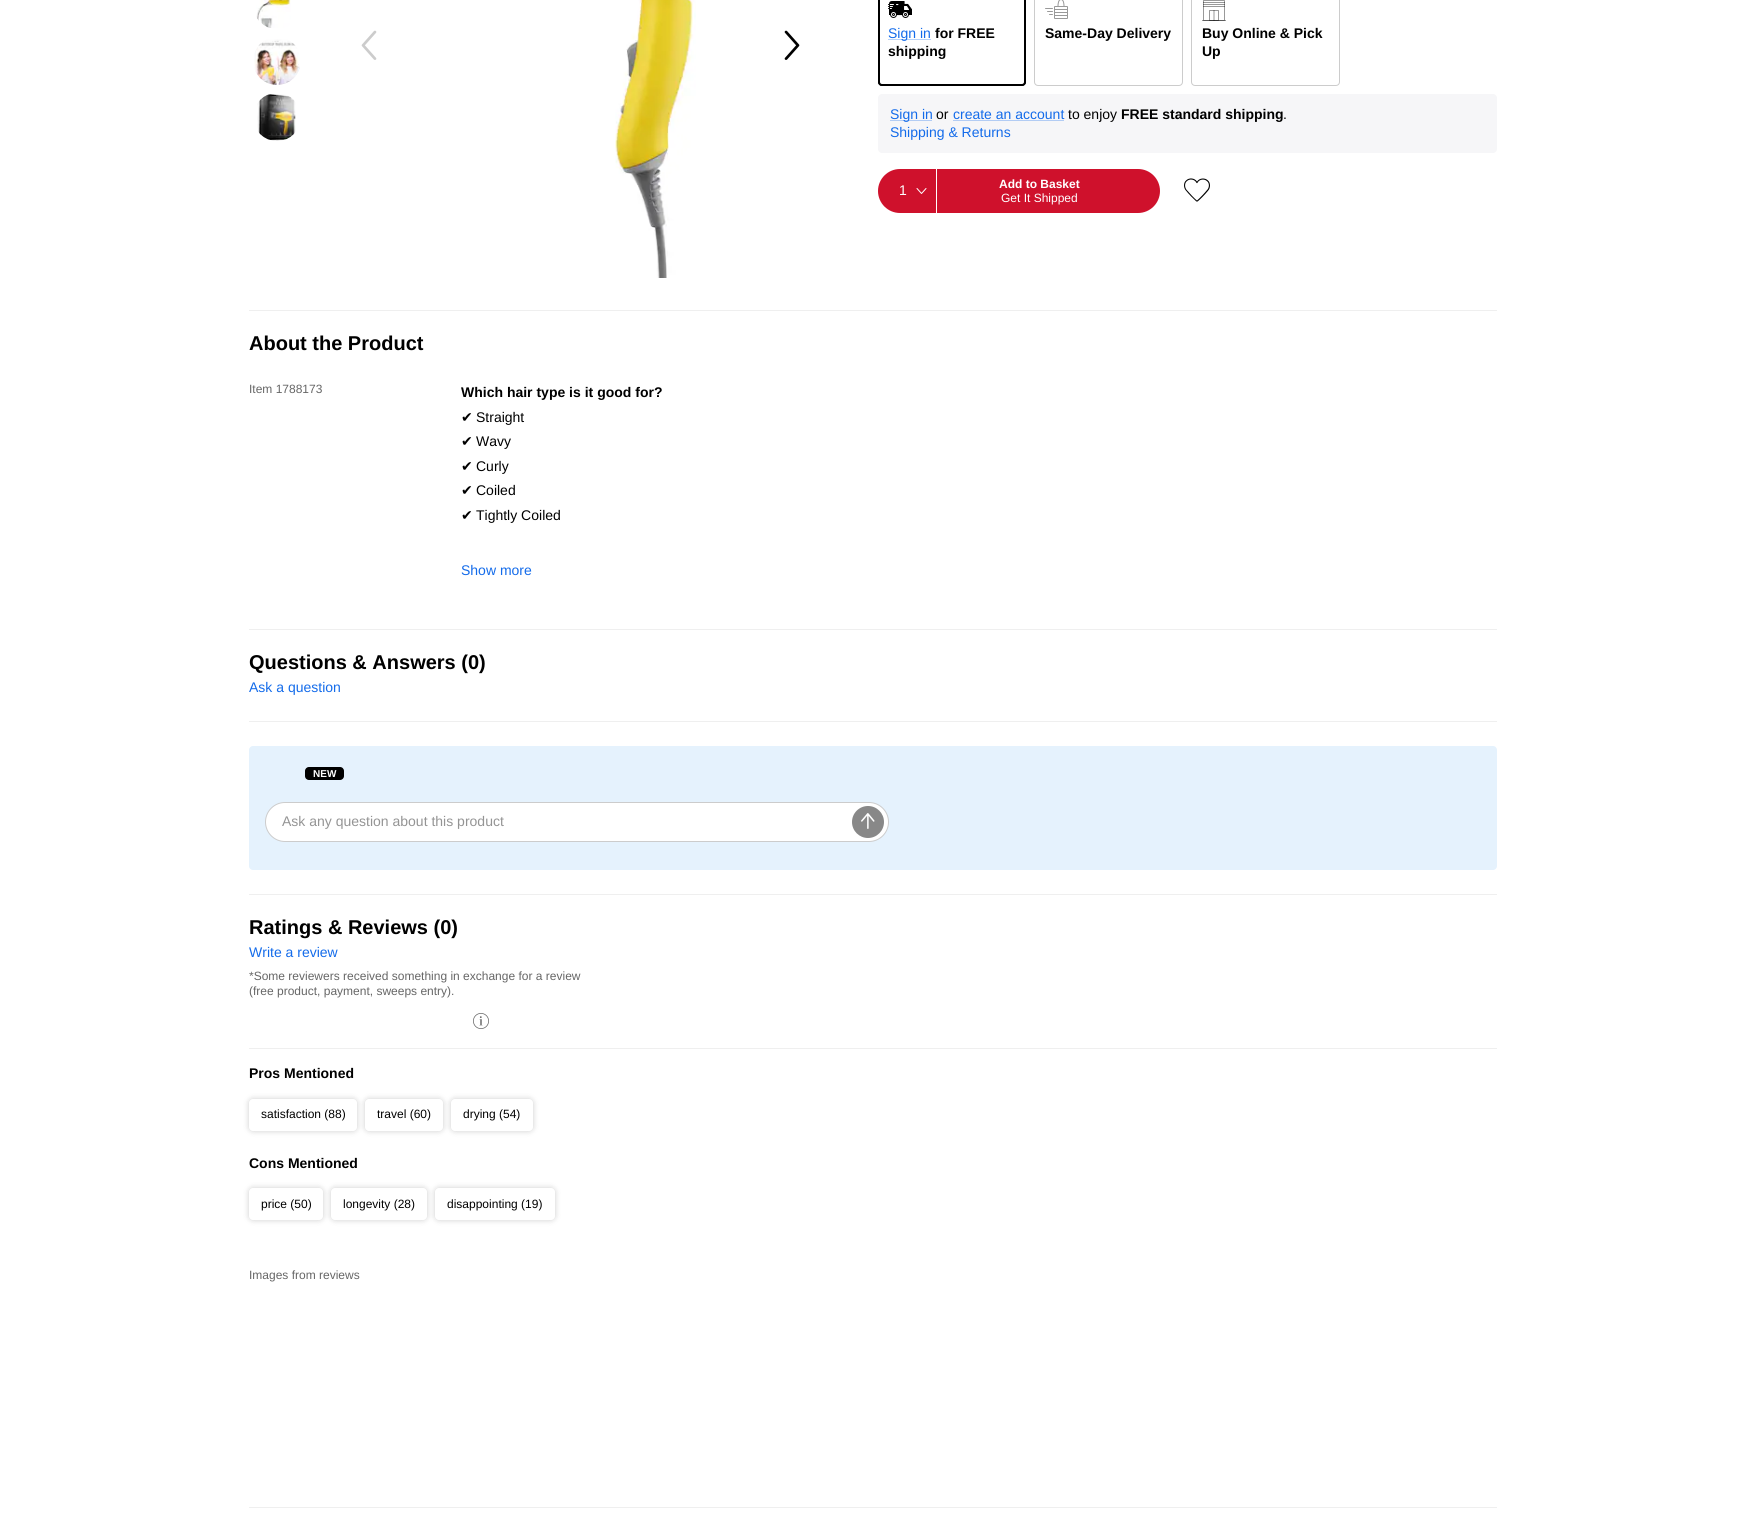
#include <cairo/cairo.h>
#include <math.h>
#include <stddef.h>

static cairo_t *cr;

static void use_color(int r, int g, int b) {
  cairo_set_source_rgb(cr, r / 255.0, g / 255.0, b / 255.0);
}

static void text(double x, double y, const char *s, const char *family, double size, int italic, int bold, int r, int g, int b) {
  cairo_select_font_face(cr, family, italic ? CAIRO_FONT_SLANT_ITALIC : CAIRO_FONT_SLANT_NORMAL,
    bold ? CAIRO_FONT_WEIGHT_BOLD : CAIRO_FONT_WEIGHT_NORMAL);
  cairo_set_font_size(cr, size);
  use_color(r, g, b);
  cairo_move_to(cr, x, y);
  cairo_show_text(cr, s);
}

static void box(double x, double y, double w, double h, int r, int g, int b) {
  use_color(r, g, b);
  cairo_rectangle(cr, x, y, w, h);
  cairo_fill(cr);
}

static void round_rect(double x, double y, double w, double h, double r) {
  cairo_new_sub_path(cr);
  cairo_arc(cr, x + w - r, y + h - r, r, 0, M_PI / 2);
  cairo_arc(cr, x + r, y + h - r, r, M_PI / 2, M_PI);
  cairo_arc(cr, x + r, y + r, r, M_PI, 1.5 * M_PI);
  cairo_arc(cr, x + w - r, y + r, r, 1.5 * M_PI, 2 * M_PI);
  cairo_close_path(cr);
}

static void shadow(double x, double y, double w, double h, double r, double blur, double alpha) {
  cairo_push_group_with_content(cr, CAIRO_CONTENT_ALPHA);
  cairo_set_operator(cr, CAIRO_OPERATOR_SOURCE);
  for (int i = 15; i >= -15 && fmin(w, h) + blur * i / 3 > 0; i -= 2) {
    double e = blur * i / 6;
    cairo_set_source_rgba(cr, 0, 0, 0, alpha * erfc((i - 1) / 8.5) / 2);
    round_rect(x - e, y - e, w + 2 * e, h + 2 * e, fmax(0, fmin(r + e + blur * .6, fmin(w, h) / 2 + e)));
    cairo_fill(cr);
  }
  cairo_pattern_t *soft = cairo_pop_group(cr);
  cairo_mask(cr, soft);
  cairo_pattern_destroy(soft);
}

static void picture(const char *path, double x, double y, double w, double h) {
  cairo_surface_t *image = cairo_image_surface_create_from_png(path);
  cairo_save(cr);
  cairo_set_source_surface(cr, image, x, y);
  cairo_rectangle(cr, x, y, w, h);
  cairo_fill(cr);
  cairo_restore(cr);
  cairo_surface_destroy(image);
}

static void draw(void) {
  use_color(255, 255, 255);
  cairo_paint(cr);
  picture("img_01.png", 256, 0, 35, 28);
  picture("img_02.png", 254, 39, 46, 46);
  picture("img_03.png", 257, 94, 39, 47);
  picture("img_04.png", 361, 30, 16, 30);
  picture("img_05.png", 615, 0, 81, 278);
  picture("img_06.png", 784, 30, 16, 30);
  round_rect(878.5, -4.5, 147, 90, 3.5);
  use_color(0, 0, 0);
  cairo_set_line_width(cr, 1);
  cairo_stroke(cr);
  picture("img_07.png", 888, 1, 24, 17);
  box(888, 39, 43, 1, 184, 211, 249);
  round_rect(879, -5, 146, 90, 3);
  use_color(0, 0, 0);
  cairo_set_line_width(cr, 2);
  cairo_stroke(cr);
  use_color(246, 246, 248);
  round_rect(878, 94, 619, 59, 4);
  cairo_fill(cr);
  box(890, 120, 42, 1, 178, 204, 244);
  box(953, 120, 111, 1, 178, 204, 244);
  round_rect(1034.5, -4.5, 148, 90, 3.5);
  use_color(204, 204, 204);
  cairo_set_line_width(cr, 1);
  cairo_stroke(cr);
  picture("img_08.png", 1045, 0, 23, 19);
  round_rect(1191.5, -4.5, 148, 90, 3.5);
  cairo_stroke(cr);
  picture("img_09.png", 1202, 0, 24, 21);
  use_color(207, 17, 44);
  round_rect(878, 169, 282, 44, 22);
  cairo_fill(cr);
  box(936, 169, 1, 44, 255, 255, 255);
  cairo_new_path(cr);
  cairo_move_to(cr, 917, 188.5);
  cairo_line_to(cr, 921.5, 193.5);
  cairo_line_to(cr, 926, 188.5);
  cairo_set_line_cap(cr, CAIRO_LINE_CAP_ROUND);
  cairo_set_line_join(cr, CAIRO_LINE_JOIN_ROUND);
  cairo_stroke(cr);
  picture("img_10.png", 1184, 178, 26, 24);
  box(249, 310, 1248, 1, 239, 239, 239);
  box(249, 629, 1248, 1, 239, 239, 239);
  box(249, 721, 1248, 1, 239, 239, 239);
  use_color(229, 242, 253);
  round_rect(249, 746, 1248, 124, 4);
  cairo_fill(cr);
  use_color(0, 0, 0);
  round_rect(305, 767, 39, 13, 4);
  cairo_fill(cr);
  use_color(255, 255, 255);
  round_rect(265.5, 802.5, 623, 39, 19.5);
  cairo_fill_preserve(cr);
  use_color(204, 204, 204);
  cairo_set_line_cap(cr, CAIRO_LINE_CAP_BUTT);
  cairo_set_line_join(cr, CAIRO_LINE_JOIN_MITER);
  cairo_stroke(cr);
  use_color(136, 136, 136);
  cairo_arc(cr, 868, 822, 16, 0, 2 * M_PI);
  cairo_fill(cr);
  picture("img_11.png", 861, 813, 14, 16);
  box(249, 894, 1248, 1, 239, 239, 239);
  picture("img_12.png", 473, 1013, 16, 16);
  box(249, 1048, 1248, 1, 239, 239, 239);
  use_color(0, 0, 0);
  shadow(249, 1099, 108, 32, 4, 3, 0.2);
  use_color(255, 255, 255);
  round_rect(249, 1099, 108, 32, 4);
  cairo_fill(cr);
  use_color(0, 0, 0);
  shadow(365, 1099, 78, 32, 4, 3, 0.2);
  use_color(255, 255, 255);
  round_rect(365, 1099, 78, 32, 4);
  cairo_fill(cr);
  use_color(0, 0, 0);
  shadow(451, 1099, 82, 32, 4, 3, 0.2);
  use_color(255, 255, 255);
  round_rect(451, 1099, 82, 32, 4);
  cairo_fill(cr);
  use_color(0, 0, 0);
  shadow(249, 1188, 74, 32, 4, 3, 0.2);
  use_color(255, 255, 255);
  round_rect(249, 1188, 74, 32, 4);
  cairo_fill(cr);
  use_color(0, 0, 0);
  shadow(331, 1188, 96, 32, 4, 3, 0.2);
  use_color(255, 255, 255);
  round_rect(331, 1188, 96, 32, 4);
  cairo_fill(cr);
  use_color(0, 0, 0);
  shadow(435, 1188, 120, 32, 4, 3, 0.2);
  use_color(255, 255, 255);
  round_rect(435, 1188, 120, 32, 4);
  cairo_fill(cr);
  box(249, 1507, 1248, 1, 239, 239, 239);
  text(888, 38, "Sign in", "Liberation Sans", 14, 0, 0, 19, 107, 234);
  text(935, 38, "for FREE", "Liberation Sans", 14, 0, 1, 0, 0, 0);
  text(888, 56, "shipping", "Liberation Sans", 14, 0, 1, 0, 0, 0);
  text(890, 119, "Sign in", "Liberation Sans", 14, 0, 0, 19, 107, 234);
  text(936, 119, "or", "Liberation Sans", 14, 0, 0, 0, 0, 0);
  text(953, 119, "create an account", "Liberation Sans", 14, 0, 0, 19, 107, 234);
  text(1068, 119, "to enjoy", "Liberation Sans", 14, 0, 0, 0, 0, 0);
  text(1121, 119, "FREE standard shipping", "Liberation Sans", 14, 0, 1, 0, 0, 0);
  text(1283, 119, ".", "Liberation Sans", 14, 0, 0, 0, 0, 0);
  text(890, 137, "Shipping & Returns", "Liberation Sans", 14, 0, 0, 19, 107, 234);
  text(1045, 38, "Same-Day Delivery", "Liberation Sans", 14, 0, 1, 0, 0, 0);
  text(1202, 38, "Buy Online & Pick", "Liberation Sans", 14, 0, 1, 0, 0, 0);
  text(1202, 56, "Up", "Liberation Sans", 14, 0, 1, 0, 0, 0);
  text(899, 195, "1", "Liberation Sans", 14, 0, 0, 255, 255, 255);
  text(999, 188, "Add to Basket", "Liberation Sans", 12, 0, 1, 255, 255, 255);
  text(1001, 202, "Get It Shipped", "Liberation Sans", 12, 0, 0, 255, 255, 255);
  text(249, 350, "About the Product", "Liberation Sans", 20, 0, 1, 0, 0, 0);
  text(249, 393, "Item 1788173", "Liberation Sans", 12, 0, 0, 102, 102, 102);
  text(461, 397, "Which hair type is it good for?", "Liberation Sans", 14, 0, 1, 0, 0, 0);
  text(461, 422, "✔", "DejaVu Sans", 14, 0, 0, 0, 0, 0);
  text(476, 422, "Straight", "Liberation Sans", 14, 0, 0, 0, 0, 0);
  text(461, 446, "✔", "DejaVu Sans", 14, 0, 0, 0, 0, 0);
  text(476, 446, "Wavy", "Liberation Sans", 14, 0, 0, 0, 0, 0);
  text(461, 471, "✔", "DejaVu Sans", 14, 0, 0, 0, 0, 0);
  text(476, 471, "Curly", "Liberation Sans", 14, 0, 0, 0, 0, 0);
  text(461, 495, "✔", "DejaVu Sans", 14, 0, 0, 0, 0, 0);
  text(476, 495, "Coiled", "Liberation Sans", 14, 0, 0, 0, 0, 0);
  text(461, 520, "✔", "DejaVu Sans", 14, 0, 0, 0, 0, 0);
  text(476, 520, "Tightly Coiled", "Liberation Sans", 14, 0, 0, 0, 0, 0);
  text(461, 575, "Show more", "Liberation Sans", 14, 0, 0, 19, 107, 234);
  text(249, 669, "Questions & Answers (0)", "Liberation Sans", 20, 0, 1, 0, 0, 0);
  text(249, 692, "Ask a question", "Liberation Sans", 14, 0, 0, 19, 107, 234);
  text(313, 777, "NEW", "Liberation Sans", 10, 0, 1, 255, 255, 255);
  text(282, 826, "Ask any question about this product", "Liberation Sans", 14, 0, 0, 148, 148, 148);
  text(249, 934, "Ratings & Reviews (0)", "Liberation Sans", 20, 0, 1, 0, 0, 0);
  text(249, 957, "Write a review", "Liberation Sans", 14, 0, 0, 19, 107, 234);
  text(249, 980, "*Some reviewers received something in exchange for a review", "Liberation Sans", 12, 0, 0, 102, 102, 102);
  text(249, 995, "(free product, payment, sweeps entry).", "Liberation Sans", 12, 0, 0, 102, 102, 102);
  text(249, 1078, "Pros Mentioned", "Liberation Sans", 14, 0, 1, 0, 0, 0);
  text(261, 1118, "satisfaction (88)", "Liberation Sans", 12, 0, 0, 0, 0, 0);
  text(377, 1118, "travel (60)", "Liberation Sans", 12, 0, 0, 0, 0, 0);
  text(463, 1118, "drying (54)", "Liberation Sans", 12, 0, 0, 0, 0, 0);
  text(249, 1168, "Cons Mentioned", "Liberation Sans", 14, 0, 1, 0, 0, 0);
  text(261, 1208, "price (50)", "Liberation Sans", 12, 0, 0, 0, 0, 0);
  text(343, 1208, "longevity (28)", "Liberation Sans", 12, 0, 0, 0, 0, 0);
  text(447, 1208, "disappointing (19)", "Liberation Sans", 12, 0, 0, 0, 0, 0);
  text(249, 1279, "Images from reviews", "Liberation Sans", 12, 0, 0, 102, 102, 102);
}

int main(void) {
  cairo_surface_t *surface = cairo_image_surface_create(CAIRO_FORMAT_RGB24, 1745, 1533);
  cr = cairo_create(surface);
  cairo_font_options_t *options = cairo_font_options_create();
  cairo_font_options_set_hint_metrics(options, CAIRO_HINT_METRICS_OFF);
  cairo_font_options_set_hint_style(options, CAIRO_HINT_STYLE_NONE);
  cairo_set_font_options(cr, options);
  cairo_set_miter_limit(cr, 4);
  draw();
  cairo_surface_write_to_png(surface, "out.png");
  cairo_font_options_destroy(options);
  cairo_destroy(cr);
  cairo_surface_destroy(surface);
  return 0;
}
